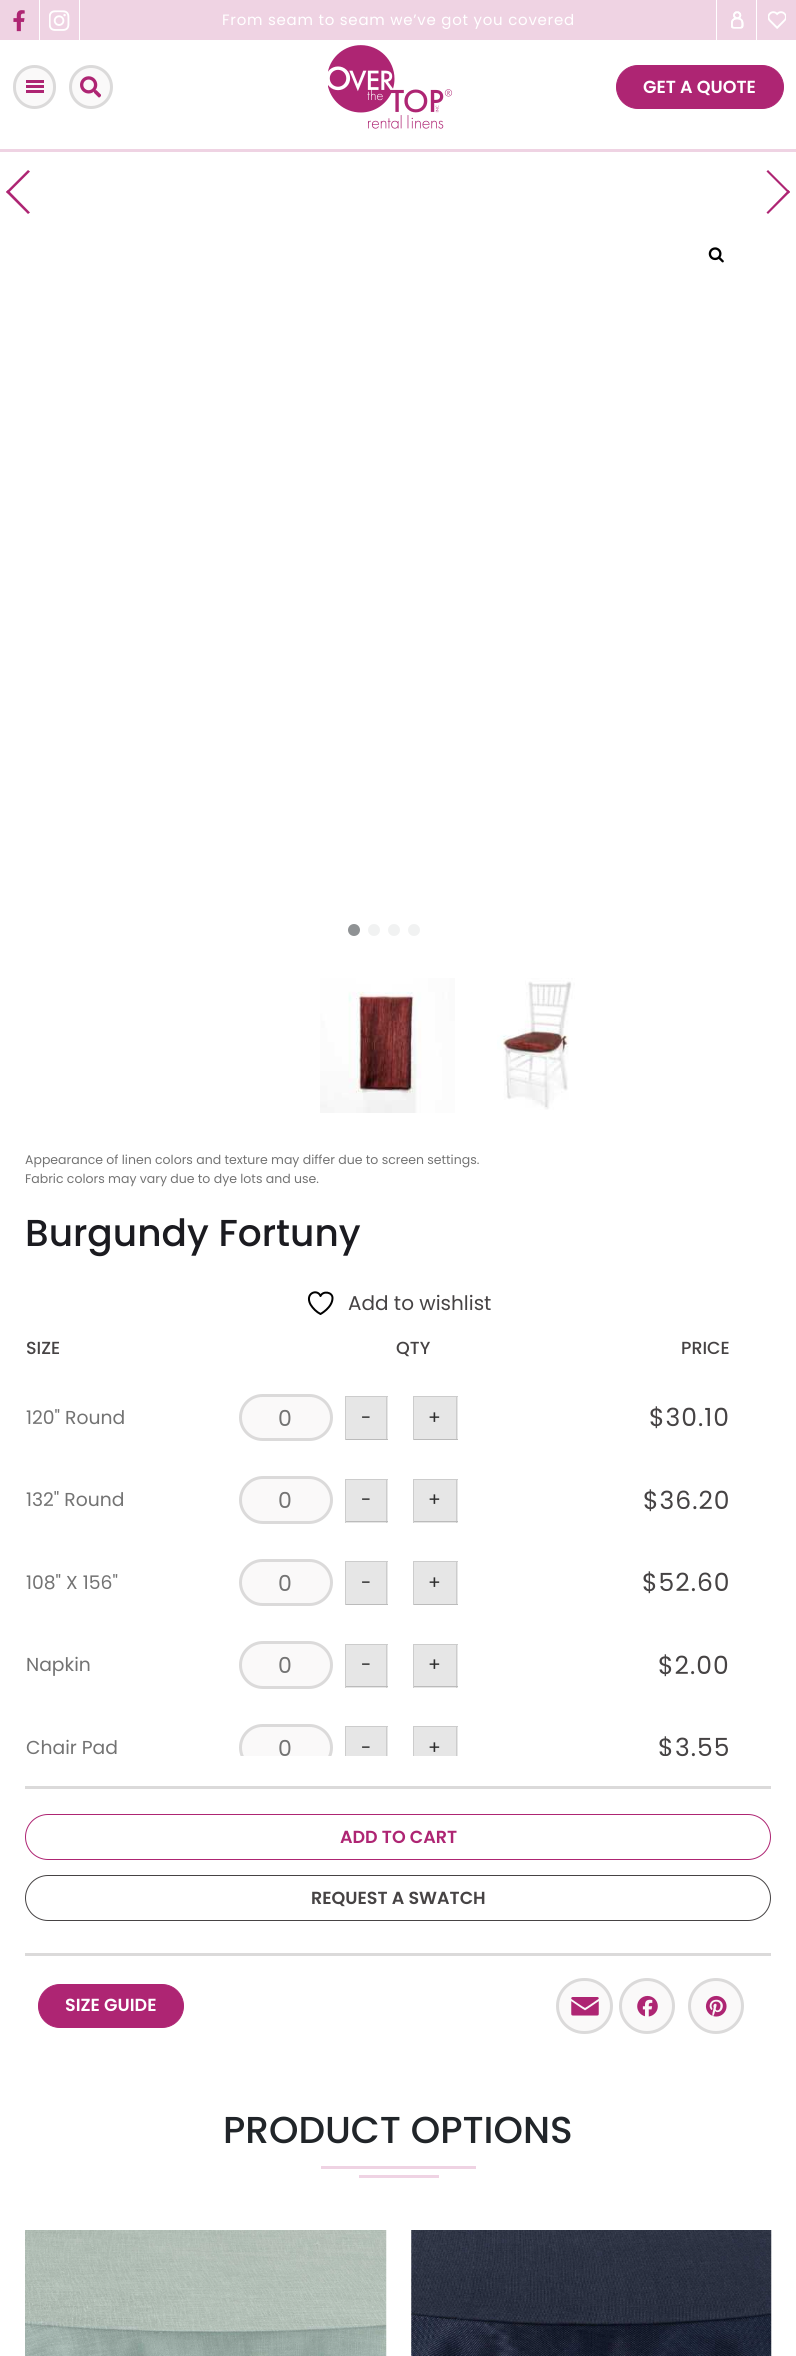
#include <cairo/cairo.h>
#include <math.h>
#include <stddef.h>

static cairo_t *cr;

static void use_color(int r, int g, int b) {
  cairo_set_source_rgb(cr, r / 255.0, g / 255.0, b / 255.0);
}

static void text(double x, double y, const char *s, const char *family, double size, int italic, int bold, int r, int g, int b) {
  cairo_select_font_face(cr, family, italic ? CAIRO_FONT_SLANT_ITALIC : CAIRO_FONT_SLANT_NORMAL,
    bold ? CAIRO_FONT_WEIGHT_BOLD : CAIRO_FONT_WEIGHT_NORMAL);
  cairo_set_font_size(cr, size);
  use_color(r, g, b);
  cairo_move_to(cr, x, y);
  cairo_show_text(cr, s);
}

static void spaced_text(double x, double y, const char *s, double letter, double word) {
  cairo_move_to(cr, x, y);
  while (*s) {
    char ch[5] = {0};
    int n = 0;
    do ch[n++] = *s++; while ((*s & 0xC0) == 0x80);
    cairo_show_text(cr, ch);
    cairo_rel_move_to(cr, letter + word * (*ch == ' '), 0);
  }
}

static void box(double x, double y, double w, double h, int r, int g, int b) {
  use_color(r, g, b);
  cairo_rectangle(cr, x, y, w, h);
  cairo_fill(cr);
}

static void round_rect(double x, double y, double w, double h, double r) {
  cairo_new_sub_path(cr);
  cairo_arc(cr, x + w - r, y + h - r, r, 0, M_PI / 2);
  cairo_arc(cr, x + r, y + h - r, r, M_PI / 2, M_PI);
  cairo_arc(cr, x + r, y + r, r, M_PI, 1.5 * M_PI);
  cairo_arc(cr, x + w - r, y + r, r, 1.5 * M_PI, 2 * M_PI);
  cairo_close_path(cr);
}

static void picture(const char *path, double x, double y, double w, double h) {
  cairo_surface_t *image = cairo_image_surface_create_from_png(path);
  cairo_save(cr);
  cairo_set_source_surface(cr, image, x, y);
  cairo_rectangle(cr, x, y, w, h);
  cairo_fill(cr);
  cairo_restore(cr);
  cairo_surface_destroy(image);
}

static void draw(void) {
  use_color(255, 255, 255);
  cairo_paint(cr);
  box(0, 149, 796, 3, 239, 211, 227);
  box(0, 0, 796, 40, 239, 211, 227);
  box(39, 0, 1, 40, 255, 255, 255);
  picture("img_01.png", 13, 10, 12, 22);
  box(79, 0, 1, 40, 255, 255, 255);
  picture("img_02.png", 49, 10, 21, 21);
  box(716, 0, 1, 40, 255, 255, 255);
  picture("img_03.png", 731, 11, 13, 18);
  box(756, 0, 1, 40, 255, 255, 255);
  picture("img_04.png", 768, 11, 18, 18);
  use_color(250, 249, 249);
  round_rect(14.5, 66.5, 40, 41, 20);
  cairo_fill_preserve(cr);
  use_color(219, 218, 218);
  cairo_set_line_width(cr, 3);
  cairo_stroke(cr);
  box(26, 80, 18, 3, 174, 37, 115);
  box(26, 85, 18, 3, 174, 37, 115);
  box(26, 90, 18, 3, 174, 37, 115);
  use_color(250, 249, 249);
  cairo_arc(cr, 91, 87, 20.5, 0, 2 * M_PI);
  cairo_fill_preserve(cr);
  use_color(219, 218, 218);
  cairo_stroke(cr);
  picture("img_05.png", 80, 76, 21, 22);
  picture("img_06.png", 328, 45, 125, 84);
  use_color(174, 37, 115);
  round_rect(616.5, 65.5, 167, 43, 21.5);
  cairo_fill_preserve(cr);
  cairo_set_line_width(cr, 1);
  cairo_stroke(cr);
  cairo_new_path(cr);
  cairo_move_to(cr, 6, 192);
  cairo_line_to(cr, 28, 170);
  cairo_line_to(cr, 30, 171.5);
  cairo_line_to(cr, 8, 193.5);
  cairo_close_path(cr);
  cairo_fill(cr);
  cairo_new_path(cr);
  cairo_move_to(cr, 6, 192);
  cairo_line_to(cr, 8, 190);
  cairo_line_to(cr, 30, 212.5);
  cairo_line_to(cr, 28, 214);
  cairo_close_path(cr);
  cairo_fill(cr);
  cairo_new_path(cr);
  cairo_move_to(cr, 790, 192);
  cairo_line_to(cr, 768, 214);
  cairo_line_to(cr, 766.5, 212.5);
  cairo_line_to(cr, 788.5, 190);
  cairo_close_path(cr);
  cairo_fill(cr);
  cairo_new_path(cr);
  cairo_move_to(cr, 790, 192);
  cairo_line_to(cr, 788.5, 193.5);
  cairo_line_to(cr, 766.5, 171.5);
  cairo_line_to(cr, 768, 170);
  cairo_close_path(cr);
  cairo_fill(cr);
  picture("img_07.png", 708, 247, 16, 16);
  use_color(143, 146, 148);
  cairo_arc(cr, 354, 930, 6, 0, 2 * M_PI);
  cairo_fill(cr);
  use_color(241, 242, 242);
  cairo_arc(cr, 374, 930, 6, 0, 2 * M_PI);
  cairo_fill(cr);
  cairo_arc(cr, 394, 930, 6, 0, 2 * M_PI);
  cairo_fill(cr);
  cairo_arc(cr, 414, 930, 6, 0, 2 * M_PI);
  cairo_fill(cr);
  picture("img_08.png", 320, 978, 135, 135);
  picture("img_09.png", 497, 978, 78, 132);
  cairo_new_path(cr);
  cairo_move_to(cr, 332.5, 1298);
  cairo_curve_to(cr, 332.5, 1292, 323, 1290.5, 320.5, 1296);
  cairo_curve_to(cr, 317.5, 1288.5, 304.5, 1293, 310.5, 1304.5);
  cairo_curve_to(cr, 313, 1308.5, 316.5, 1312, 320.5, 1314);
  cairo_curve_to(cr, 320.5, 1314, 332.5, 1307.5, 332.5, 1298);
  cairo_close_path(cr);
  use_color(0, 0, 0);
  cairo_set_line_width(cr, 2);
  cairo_set_line_cap(cr, CAIRO_LINE_CAP_ROUND);
  cairo_set_line_join(cr, CAIRO_LINE_JOIN_ROUND);
  cairo_stroke(cr);
  use_color(250, 249, 249);
  round_rect(240.5, 1395.5, 91, 44, 22);
  cairo_fill_preserve(cr);
  use_color(219, 218, 218);
  cairo_set_line_width(cr, 3);
  cairo_set_line_cap(cr, CAIRO_LINE_CAP_BUTT);
  cairo_set_line_join(cr, CAIRO_LINE_JOIN_MITER);
  cairo_stroke(cr);
  box(346, 1397, 42, 42, 230, 230, 230);
  box(345, 1396, 43, 1, 204, 204, 204);
  box(386, 1396, 1, 44, 204, 204, 204);
  box(345, 1439, 43, 1, 187, 187, 187);
  box(345, 1396, 1, 44, 204, 204, 204);
  box(414, 1397, 44, 42, 230, 230, 230);
  box(413, 1396, 45, 1, 204, 204, 204);
  box(456, 1396, 1, 44, 204, 204, 204);
  box(413, 1439, 45, 1, 187, 187, 187);
  box(413, 1396, 1, 44, 204, 204, 204);
  use_color(250, 249, 249);
  round_rect(240.5, 1477.5, 91, 45, 22.5);
  cairo_fill_preserve(cr);
  use_color(219, 218, 218);
  cairo_stroke(cr);
  box(346, 1480, 42, 43, 230, 230, 230);
  box(345, 1479, 43, 1, 204, 204, 204);
  box(386, 1479, 1, 44, 204, 204, 204);
  box(345, 1521, 43, 1, 187, 187, 187);
  box(345, 1479, 1, 44, 204, 204, 204);
  box(414, 1480, 44, 43, 230, 230, 230);
  box(413, 1479, 45, 1, 204, 204, 204);
  box(456, 1479, 1, 44, 204, 204, 204);
  box(413, 1521, 45, 1, 187, 187, 187);
  box(413, 1479, 1, 44, 204, 204, 204);
  use_color(250, 249, 249);
  round_rect(240.5, 1560.5, 91, 44, 22);
  cairo_fill_preserve(cr);
  use_color(219, 218, 218);
  cairo_stroke(cr);
  box(346, 1562, 42, 42, 230, 230, 230);
  box(345, 1561, 43, 1, 204, 204, 204);
  box(386, 1561, 1, 44, 204, 204, 204);
  box(345, 1604, 43, 1, 187, 187, 187);
  box(345, 1561, 1, 44, 204, 204, 204);
  box(414, 1562, 44, 42, 230, 230, 230);
  box(413, 1561, 45, 1, 204, 204, 204);
  box(456, 1561, 1, 44, 204, 204, 204);
  box(413, 1604, 45, 1, 187, 187, 187);
  box(413, 1561, 1, 44, 204, 204, 204);
  use_color(250, 249, 249);
  round_rect(240.5, 1642.5, 91, 45, 22.5);
  cairo_fill_preserve(cr);
  use_color(219, 218, 218);
  cairo_stroke(cr);
  box(346, 1645, 42, 43, 230, 230, 230);
  box(345, 1644, 43, 1, 204, 204, 204);
  box(386, 1644, 1, 44, 204, 204, 204);
  box(345, 1686, 43, 1, 187, 187, 187);
  box(345, 1644, 1, 44, 204, 204, 204);
  box(414, 1645, 44, 43, 230, 230, 230);
  box(413, 1644, 45, 1, 204, 204, 204);
  box(456, 1644, 1, 44, 204, 204, 204);
  box(413, 1686, 45, 1, 187, 187, 187);
  box(413, 1644, 1, 44, 204, 204, 204);
  cairo_save(cr);
  cairo_rectangle(cr, 25, 1319, 725, 437);
  cairo_clip(cr);
  use_color(250, 249, 249);
  round_rect(240.5, 1725.5, 91, 44, 22);
  cairo_fill_preserve(cr);
  use_color(219, 218, 218);
  cairo_stroke(cr);
  cairo_restore(cr);
  box(346, 1727, 42, 29, 230, 230, 230);
  box(345, 1726, 43, 1, 204, 204, 204);
  box(386, 1726, 1, 30, 204, 204, 204);
  box(345, 1726, 1, 30, 204, 204, 204);
  box(414, 1727, 44, 29, 230, 230, 230);
  box(413, 1726, 45, 1, 204, 204, 204);
  box(456, 1726, 1, 30, 204, 204, 204);
  box(413, 1726, 1, 30, 204, 204, 204);
  box(25, 1786, 746, 3, 219, 218, 218);
  box(25, 1953, 746, 3, 219, 218, 218);
  round_rect(25.5, 1814.5, 745, 45, 22.5);
  use_color(174, 37, 115);
  cairo_set_line_width(cr, 1);
  cairo_stroke(cr);
  round_rect(25.5, 1875.5, 745, 45, 22.5);
  use_color(70, 67, 68);
  cairo_stroke(cr);
  use_color(174, 37, 115);
  round_rect(38.5, 1984.5, 145, 43, 21.5);
  cairo_fill_preserve(cr);
  cairo_stroke(cr);
  use_color(250, 249, 249);
  round_rect(557.5, 1979.5, 54, 53, 26.5);
  cairo_fill_preserve(cr);
  use_color(219, 218, 218);
  cairo_set_line_width(cr, 3);
  cairo_stroke(cr);
  picture("img_10.png", 571, 1997, 28, 19);
  use_color(250, 249, 249);
  cairo_arc(cr, 647, 2006, 26.5, 0, 2 * M_PI);
  cairo_fill_preserve(cr);
  use_color(219, 218, 218);
  cairo_stroke(cr);
  picture("img_11.png", 637, 1995, 21, 22);
  use_color(250, 249, 249);
  cairo_arc(cr, 716, 2006, 26.5, 0, 2 * M_PI);
  cairo_fill_preserve(cr);
  use_color(219, 218, 218);
  cairo_stroke(cr);
  picture("img_12.png", 705, 1995, 22, 22);
  box(321, 2166, 155, 3, 239, 211, 227);
  box(359, 2175, 80, 3, 239, 211, 227);
  picture("img_13.png", 25, 2230, 362, 126);
  picture("img_14.png", 411, 2230, 361, 126);
  cairo_select_font_face(cr, "Poppins", CAIRO_FONT_SLANT_NORMAL, CAIRO_FONT_WEIGHT_NORMAL);
  cairo_set_font_size(cr, 15);
  use_color(255, 255, 255);
  spaced_text(222, 25, "From seam to seam we’ve got you covered", 0.75, 0);
  text(643, 93, "GET A QUOTE", "Poppins SemiBold", 17.5, 0, 0, 255, 255, 255);
  text(25, 1164, "Appearance of linen colors and texture may differ due to screen settings.", "Poppins", 12.5, 0, 0, 115, 115, 115);
  text(25, 1183, "Fabric colors may vary due to dye lots and use.", "Poppins", 12.5, 0, 0, 115, 115, 115);
  text(25, 1246, "Burgundy Fortuny", "Poppins Medium", 37.5, 0, 0, 27, 27, 32);
  text(348, 1310, "Add to wishlist", "Poppins", 20, 0, 0, 70, 67, 68);
  text(26, 1354, "SIZE", "Poppins Medium", 17.5, 0, 0, 70, 67, 68);
  text(396, 1354, "QTY", "Poppins Medium", 17.5, 0, 0, 70, 67, 68);
  text(681, 1354, "PRICE", "Poppins Medium", 17.5, 0, 0, 70, 67, 68);
  text(26, 1424, "120\" Round", "Poppins", 18.75, 0, 0, 115, 115, 115);
  text(278, 1426, "0", "Poppins", 22, 0, 0, 115, 115, 115);
  text(361, 1424, "-", "Poppins", 18.75, 0, 0, 46, 46, 46);
  text(428, 1424, "+", "Poppins", 18.75, 0, 0, 46, 46, 46);
  cairo_set_font_size(cr, 25);
  use_color(70, 67, 68);
  spaced_text(649, 1426, "$30.10", 1, 0);
  text(26, 1506, "132\" Round", "Poppins", 18.75, 0, 0, 115, 115, 115);
  text(278, 1508, "0", "Poppins", 22, 0, 0, 115, 115, 115);
  text(361, 1506, "-", "Poppins", 18.75, 0, 0, 46, 46, 46);
  text(428, 1506, "+", "Poppins", 18.75, 0, 0, 46, 46, 46);
  cairo_set_font_size(cr, 25);
  use_color(70, 67, 68);
  spaced_text(643, 1509, "$36.20", 1, 0);
  text(26, 1589, "108\" X 156\"", "Poppins", 18.75, 0, 0, 115, 115, 115);
  text(278, 1591, "0", "Poppins", 22, 0, 0, 115, 115, 115);
  text(361, 1589, "-", "Poppins", 18.75, 0, 0, 46, 46, 46);
  text(428, 1589, "+", "Poppins", 18.75, 0, 0, 46, 46, 46);
  cairo_set_font_size(cr, 25);
  use_color(70, 67, 68);
  spaced_text(642, 1591, "$52.60", 1, 0);
  text(26, 1671, "Napkin", "Poppins", 18.75, 0, 0, 115, 115, 115);
  text(278, 1673, "0", "Poppins", 22, 0, 0, 115, 115, 115);
  text(361, 1671, "-", "Poppins", 18.75, 0, 0, 46, 46, 46);
  text(428, 1671, "+", "Poppins", 18.75, 0, 0, 46, 46, 46);
  cairo_set_font_size(cr, 25);
  use_color(70, 67, 68);
  spaced_text(658, 1674, "$2.00", 1, 0);
  text(26, 1754, "Chair Pad", "Poppins", 18.75, 0, 0, 115, 115, 115);
  text(278, 1756, "0", "Poppins", 22, 0, 0, 115, 115, 115);
  text(361, 1754, "-", "Poppins", 18.75, 0, 0, 46, 46, 46);
  text(428, 1754, "+", "Poppins", 18.75, 0, 0, 46, 46, 46);
  cairo_save(cr);
  cairo_rectangle(cr, 25, 1319, 725, 437);
  cairo_clip(cr);
  cairo_set_font_size(cr, 25);
  use_color(70, 67, 68);
  spaced_text(658, 1756, "$", 1, 0);
  cairo_restore(cr);
  cairo_set_font_size(cr, 25);
  use_color(70, 67, 68);
  spaced_text(675, 1756, "3.55", 1, 0);
  text(340, 1843, "ADD TO CART", "Poppins SemiBold", 17.5, 0, 0, 174, 37, 115);
  text(311, 1904, "REQUEST A SWATCH", "Poppins SemiBold", 17.5, 0, 0, 70, 67, 68);
  text(65, 2011, "SIZE GUIDE", "Poppins SemiBold", 17.5, 0, 0, 255, 255, 255);
  text(223, 2143, "PRODUCT OPTIONS", "Poppins Medium", 37.5, 0, 0, 33, 37, 41);
}

int main(void) {
  cairo_surface_t *surface = cairo_image_surface_create(CAIRO_FORMAT_RGB24, 796, 2356);
  cr = cairo_create(surface);
  cairo_font_options_t *options = cairo_font_options_create();
  cairo_font_options_set_hint_metrics(options, CAIRO_HINT_METRICS_OFF);
  cairo_font_options_set_hint_style(options, CAIRO_HINT_STYLE_NONE);
  cairo_set_font_options(cr, options);
  cairo_set_miter_limit(cr, 4);
  draw();
  cairo_surface_write_to_png(surface, "out.png");
  cairo_font_options_destroy(options);
  cairo_destroy(cr);
  cairo_surface_destroy(surface);
  return 0;
}
